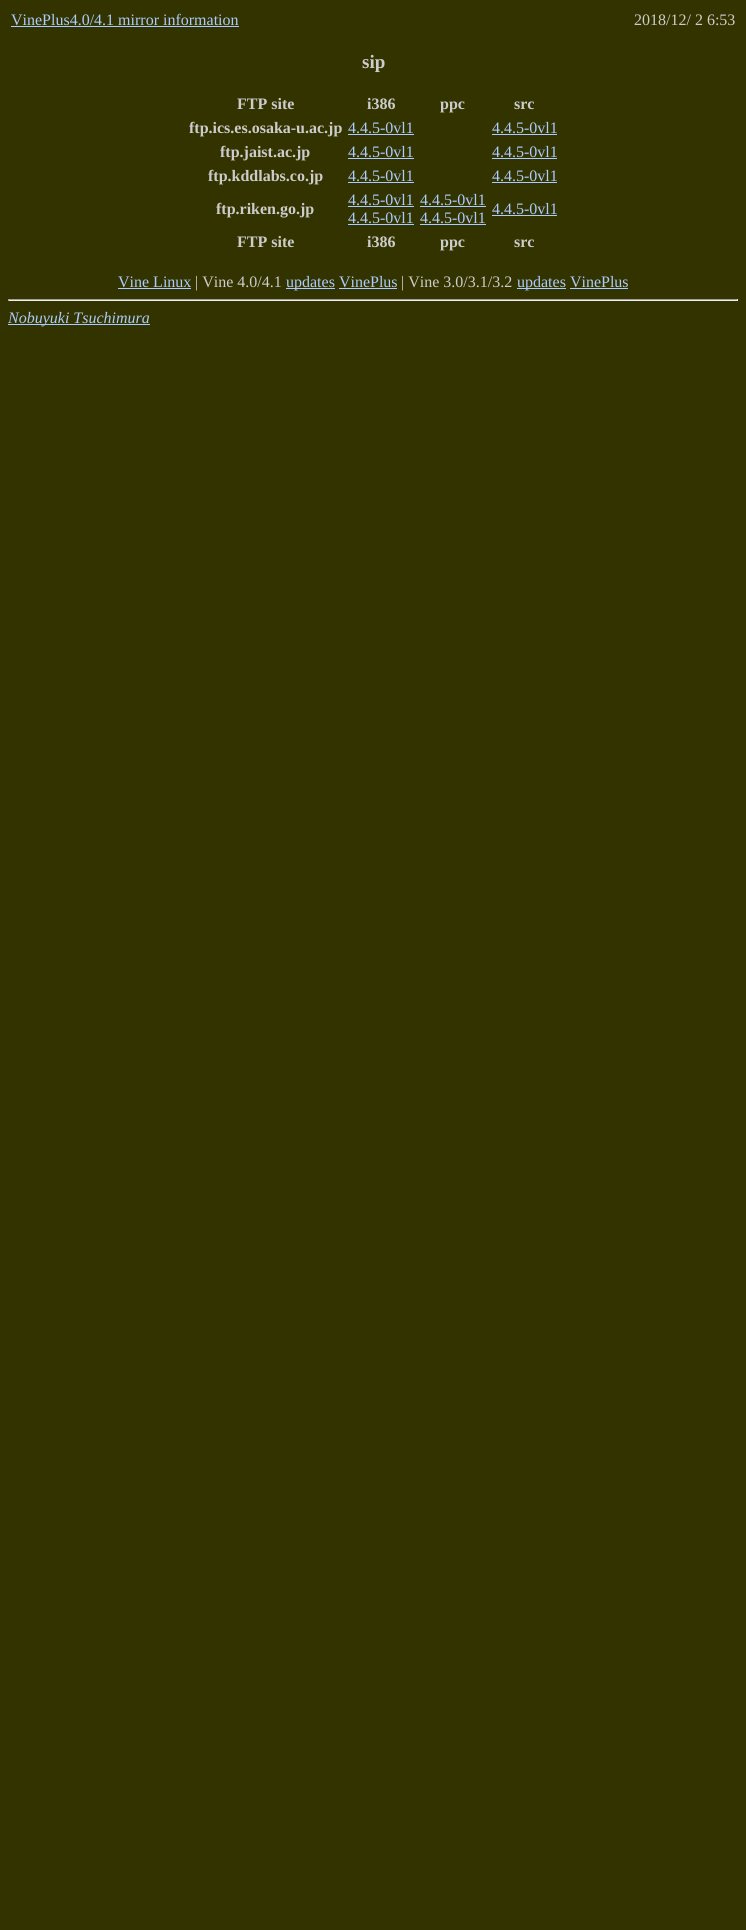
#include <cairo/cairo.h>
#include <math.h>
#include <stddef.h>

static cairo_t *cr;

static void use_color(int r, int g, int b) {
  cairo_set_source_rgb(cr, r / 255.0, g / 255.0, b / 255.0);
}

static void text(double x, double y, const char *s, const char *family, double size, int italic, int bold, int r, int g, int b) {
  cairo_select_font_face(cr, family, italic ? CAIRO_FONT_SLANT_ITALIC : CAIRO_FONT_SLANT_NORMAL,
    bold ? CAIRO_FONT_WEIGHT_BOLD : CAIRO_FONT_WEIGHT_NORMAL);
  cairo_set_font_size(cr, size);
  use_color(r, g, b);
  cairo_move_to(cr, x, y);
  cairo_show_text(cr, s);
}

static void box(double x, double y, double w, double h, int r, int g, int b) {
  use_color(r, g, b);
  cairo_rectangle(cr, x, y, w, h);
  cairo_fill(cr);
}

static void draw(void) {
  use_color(51, 51, 0);
  cairo_paint(cr);
  box(11, 26, 228, 1, 170, 204, 255);
  box(348, 134, 66, 1, 170, 204, 255);
  box(492, 134, 65, 1, 170, 204, 255);
  box(348, 158, 66, 1, 170, 204, 255);
  box(492, 158, 65, 1, 170, 204, 255);
  box(348, 182, 66, 1, 170, 204, 255);
  box(492, 182, 65, 1, 170, 204, 255);
  box(348, 206, 66, 1, 170, 204, 255);
  box(348, 224, 66, 1, 170, 204, 255);
  box(420, 206, 66, 1, 170, 204, 255);
  box(420, 224, 66, 1, 170, 204, 255);
  box(492, 215, 65, 1, 170, 204, 255);
  box(118, 288, 73, 1, 170, 204, 255);
  box(286, 288, 49, 1, 170, 204, 255);
  box(517, 288, 49, 1, 170, 204, 255);
  box(339, 288, 58, 1, 170, 204, 255);
  box(570, 288, 58, 1, 170, 204, 255);
  box(8, 299, 730, 1, 159, 159, 159);
  box(737, 299, 1, 2, 238, 238, 238);
  box(8, 300, 730, 1, 238, 238, 238);
  box(8, 299, 1, 2, 159, 159, 159);
  box(8, 324, 142, 1, 170, 204, 255);
  text(11, 25, "VinePlus4.0/4.1 mirror information", "Liberation Serif", 16, 0, 0, 170, 204, 255);
  text(634, 25, "2018/12/ 2 6:53", "Liberation Serif", 16, 0, 0, 204, 204, 204);
  text(362, 68, "sip", "Liberation Serif", 19, 0, 1, 204, 204, 204);
  text(237, 109, "FTP site", "Liberation Serif", 16, 0, 1, 204, 204, 204);
  text(367, 109, "i386", "Liberation Serif", 16, 0, 1, 204, 204, 204);
  text(440, 109, "ppc", "Liberation Serif", 16, 0, 1, 204, 204, 204);
  text(514, 109, "src", "Liberation Serif", 16, 0, 1, 204, 204, 204);
  text(189, 133, "ftp.ics.es.osaka-u.ac.jp", "Liberation Serif", 16, 0, 1, 204, 204, 204);
  text(348, 133, "4.4.5-0vl1", "Liberation Serif", 16, 0, 0, 170, 204, 255);
  text(492, 133, "4.4.5-0vl1", "Liberation Serif", 16, 0, 0, 170, 204, 255);
  text(220, 157, "ftp.jaist.ac.jp", "Liberation Serif", 16, 0, 1, 204, 204, 204);
  text(348, 157, "4.4.5-0vl1", "Liberation Serif", 16, 0, 0, 170, 204, 255);
  text(492, 157, "4.4.5-0vl1", "Liberation Serif", 16, 0, 0, 170, 204, 255);
  text(208, 181, "ftp.kddlabs.co.jp", "Liberation Serif", 16, 0, 1, 204, 204, 204);
  text(348, 181, "4.4.5-0vl1", "Liberation Serif", 16, 0, 0, 170, 204, 255);
  text(492, 181, "4.4.5-0vl1", "Liberation Serif", 16, 0, 0, 170, 204, 255);
  text(216, 214, "ftp.riken.go.jp", "Liberation Serif", 16, 0, 1, 204, 204, 204);
  text(348, 205, "4.4.5-0vl1", "Liberation Serif", 16, 0, 0, 170, 204, 255);
  text(348, 223, "4.4.5-0vl1", "Liberation Serif", 16, 0, 0, 170, 204, 255);
  text(420, 205, "4.4.5-0vl1", "Liberation Serif", 16, 0, 0, 170, 204, 255);
  text(420, 223, "4.4.5-0vl1", "Liberation Serif", 16, 0, 0, 170, 204, 255);
  text(492, 214, "4.4.5-0vl1", "Liberation Serif", 16, 0, 0, 170, 204, 255);
  text(237, 247, "FTP site", "Liberation Serif", 16, 0, 1, 204, 204, 204);
  text(367, 247, "i386", "Liberation Serif", 16, 0, 1, 204, 204, 204);
  text(440, 247, "ppc", "Liberation Serif", 16, 0, 1, 204, 204, 204);
  text(514, 247, "src", "Liberation Serif", 16, 0, 1, 204, 204, 204);
  text(118, 287, "Vine Linux", "Liberation Serif", 16, 0, 0, 170, 204, 255);
  text(195, 287, "| Vine 4.0/4.1", "Liberation Serif", 16, 0, 0, 204, 204, 204);
  text(286, 287, "updates VinePlus", "Liberation Serif", 16, 0, 0, 170, 204, 255);
  text(401, 287, "| Vine 3.0/3.1/3.2", "Liberation Serif", 16, 0, 0, 204, 204, 204);
  text(517, 287, "updates VinePlus", "Liberation Serif", 16, 0, 0, 170, 204, 255);
  text(8, 323, "Nobuyuki Tsuchimura", "Liberation Serif", 16, 1, 0, 170, 204, 255);
}

int main(void) {
  cairo_surface_t *surface = cairo_image_surface_create(CAIRO_FORMAT_RGB24, 746, 1930);
  cr = cairo_create(surface);
  cairo_font_options_t *options = cairo_font_options_create();
  cairo_font_options_set_hint_metrics(options, CAIRO_HINT_METRICS_OFF);
  cairo_font_options_set_hint_style(options, CAIRO_HINT_STYLE_NONE);
  cairo_set_font_options(cr, options);
  cairo_set_miter_limit(cr, 4);
  draw();
  cairo_surface_write_to_png(surface, "out.png");
  cairo_font_options_destroy(options);
  cairo_destroy(cr);
  cairo_surface_destroy(surface);
  return 0;
}
